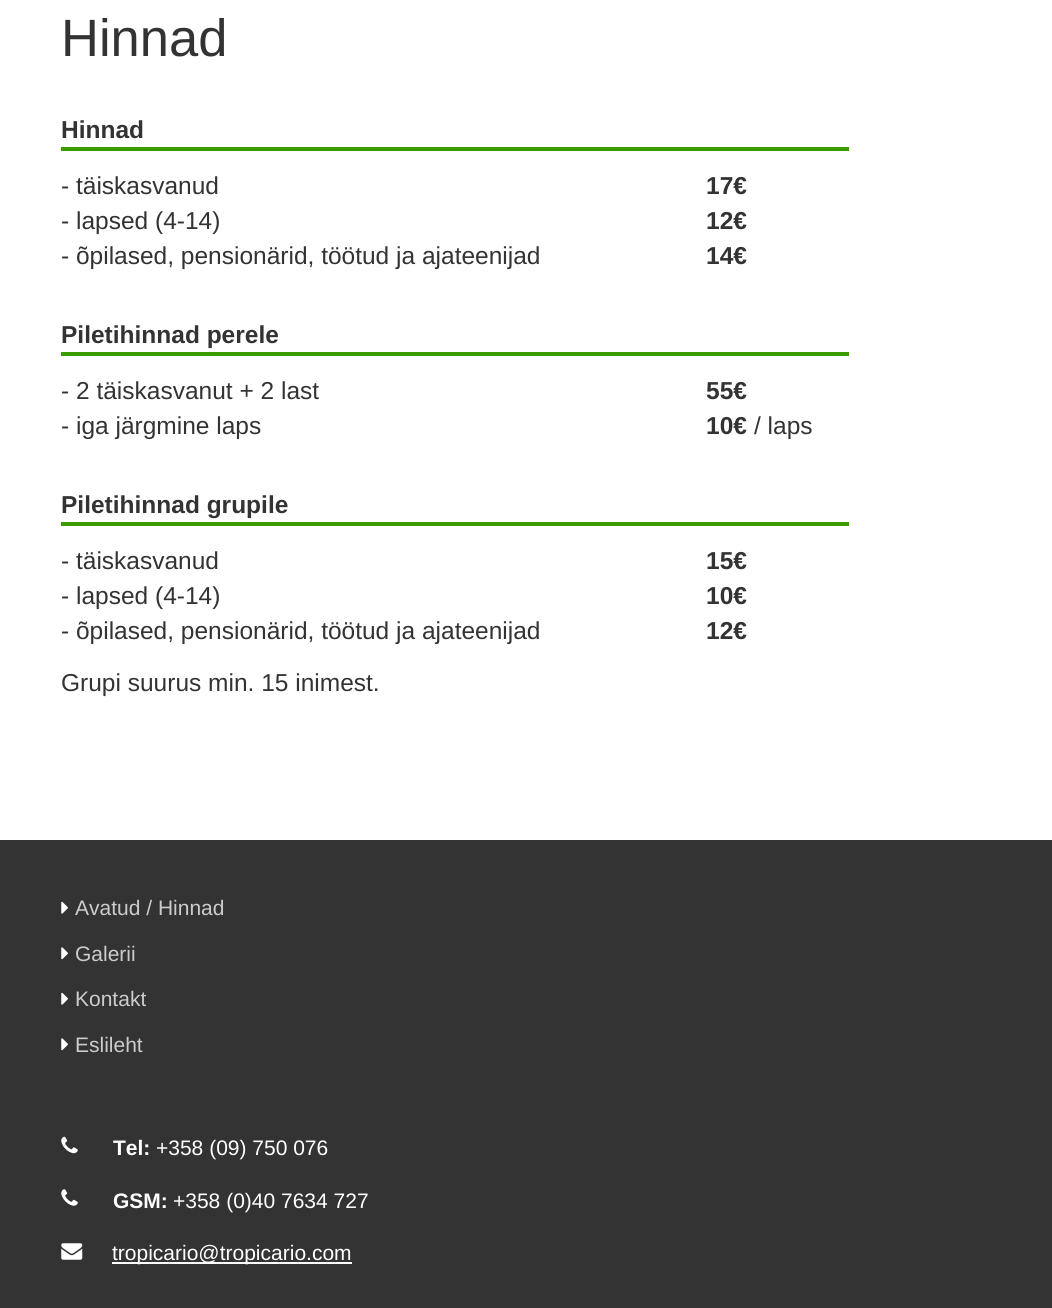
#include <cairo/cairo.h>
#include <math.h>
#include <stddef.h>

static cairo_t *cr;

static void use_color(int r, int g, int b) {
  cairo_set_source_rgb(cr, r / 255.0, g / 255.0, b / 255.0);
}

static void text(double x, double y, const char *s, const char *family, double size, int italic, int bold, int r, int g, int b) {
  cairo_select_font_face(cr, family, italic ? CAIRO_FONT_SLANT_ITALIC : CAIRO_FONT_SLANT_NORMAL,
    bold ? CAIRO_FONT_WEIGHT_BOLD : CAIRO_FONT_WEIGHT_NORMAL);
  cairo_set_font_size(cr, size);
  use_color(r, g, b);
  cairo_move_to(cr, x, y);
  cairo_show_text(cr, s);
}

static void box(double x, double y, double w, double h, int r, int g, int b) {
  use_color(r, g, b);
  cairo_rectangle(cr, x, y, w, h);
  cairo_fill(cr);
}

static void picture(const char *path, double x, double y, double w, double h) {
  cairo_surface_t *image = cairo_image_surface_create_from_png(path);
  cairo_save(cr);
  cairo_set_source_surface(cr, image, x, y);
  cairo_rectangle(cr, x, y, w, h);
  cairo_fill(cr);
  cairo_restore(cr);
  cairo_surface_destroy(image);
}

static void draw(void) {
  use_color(255, 255, 255);
  cairo_paint(cr);
  box(61, 147, 788, 4, 59, 156, 0);
  box(61, 352, 788, 4, 59, 156, 0);
  box(61, 522, 788, 4, 59, 156, 0);
  box(0, 840, 1052, 468, 51, 51, 51);
  picture("img_01.png", 61, 901, 7, 13);
  picture("img_02.png", 61, 947, 7, 13);
  picture("img_01.png", 61, 992, 7, 13);
  picture("img_02.png", 61, 1038, 7, 13);
  picture("img_03.png", 61, 1136, 17, 18);
  picture("img_04.png", 61, 1189, 17, 17);
  picture("img_05.png", 61, 1243, 22, 17);
  box(112, 1262, 240, 2, 255, 255, 255);
  text(61, 56, "Hinnad", "Liberation Sans", 52.5, 0, 0, 51, 51, 51);
  text(61, 138, "Hinnad", "Liberation Sans", 24.5, 0, 1, 51, 51, 51);
  text(61, 194, "- täiskasvanud", "Liberation Sans", 24.5, 0, 0, 51, 51, 51);
  text(706, 194, "17€", "Liberation Sans", 24.5, 0, 1, 51, 51, 51);
  text(61, 229, "- lapsed (4-14)", "Liberation Sans", 24.5, 0, 0, 51, 51, 51);
  text(706, 229, "12€", "Liberation Sans", 24.5, 0, 1, 51, 51, 51);
  text(61, 264, "- õpilased, pensionärid, töötud ja ajateenijad", "Liberation Sans", 24.5, 0, 0, 51, 51, 51);
  text(706, 264, "14€", "Liberation Sans", 24.5, 0, 1, 51, 51, 51);
  text(61, 343, "Piletihinnad perele", "Liberation Sans", 24.5, 0, 1, 51, 51, 51);
  text(61, 399, "- 2 täiskasvanut + 2 last", "Liberation Sans", 24.5, 0, 0, 51, 51, 51);
  text(706, 399, "55€", "Liberation Sans", 24.5, 0, 1, 51, 51, 51);
  text(61, 434, "- iga järgmine laps", "Liberation Sans", 24.5, 0, 0, 51, 51, 51);
  text(706, 434, "10€", "Liberation Sans", 24.5, 0, 1, 51, 51, 51);
  text(754, 434, "/ laps", "Liberation Sans", 24.5, 0, 0, 51, 51, 51);
  text(61, 513, "Piletihinnad grupile", "Liberation Sans", 24.5, 0, 1, 51, 51, 51);
  text(61, 569, "- täiskasvanud", "Liberation Sans", 24.5, 0, 0, 51, 51, 51);
  text(706, 569, "15€", "Liberation Sans", 24.5, 0, 1, 51, 51, 51);
  text(61, 604, "- lapsed (4-14)", "Liberation Sans", 24.5, 0, 0, 51, 51, 51);
  text(706, 604, "10€", "Liberation Sans", 24.5, 0, 1, 51, 51, 51);
  text(61, 639, "- õpilased, pensionärid, töötud ja ajateenijad", "Liberation Sans", 24.5, 0, 0, 51, 51, 51);
  text(706, 639, "12€", "Liberation Sans", 24.5, 0, 1, 51, 51, 51);
  text(61, 691, "Grupi suurus min. 15 inimest.", "Liberation Sans", 24.5, 0, 0, 51, 51, 51);
  text(75, 915, "Avatud / Hinnad", "Liberation Sans", 21, 0, 0, 204, 204, 204);
  text(75, 961, "Galerii", "Liberation Sans", 21, 0, 0, 204, 204, 204);
  text(75, 1006, "Kontakt", "Liberation Sans", 21, 0, 0, 204, 204, 204);
  text(75, 1052, "Eslileht", "Liberation Sans", 21, 0, 0, 204, 204, 204);
  text(113, 1155, "Tel:", "Liberation Sans", 21, 0, 1, 255, 255, 255);
  text(156, 1155, "+358 (09) 750 076", "Liberation Sans", 21, 0, 0, 255, 255, 255);
  text(113, 1208, "GSM:", "Liberation Sans", 21, 0, 1, 255, 255, 255);
  text(173, 1208, "+358 (0)40 7634 727", "Liberation Sans", 21, 0, 0, 255, 255, 255);
  text(112, 1260, "tropicario@tropicario.com", "Liberation Sans", 21, 0, 0, 255, 255, 255);
}

int main(void) {
  cairo_surface_t *surface = cairo_image_surface_create(CAIRO_FORMAT_RGB24, 1052, 1308);
  cr = cairo_create(surface);
  cairo_font_options_t *options = cairo_font_options_create();
  cairo_font_options_set_hint_metrics(options, CAIRO_HINT_METRICS_OFF);
  cairo_font_options_set_hint_style(options, CAIRO_HINT_STYLE_NONE);
  cairo_set_font_options(cr, options);
  cairo_set_miter_limit(cr, 4);
  draw();
  cairo_surface_write_to_png(surface, "out.png");
  cairo_font_options_destroy(options);
  cairo_destroy(cr);
  cairo_surface_destroy(surface);
  return 0;
}
